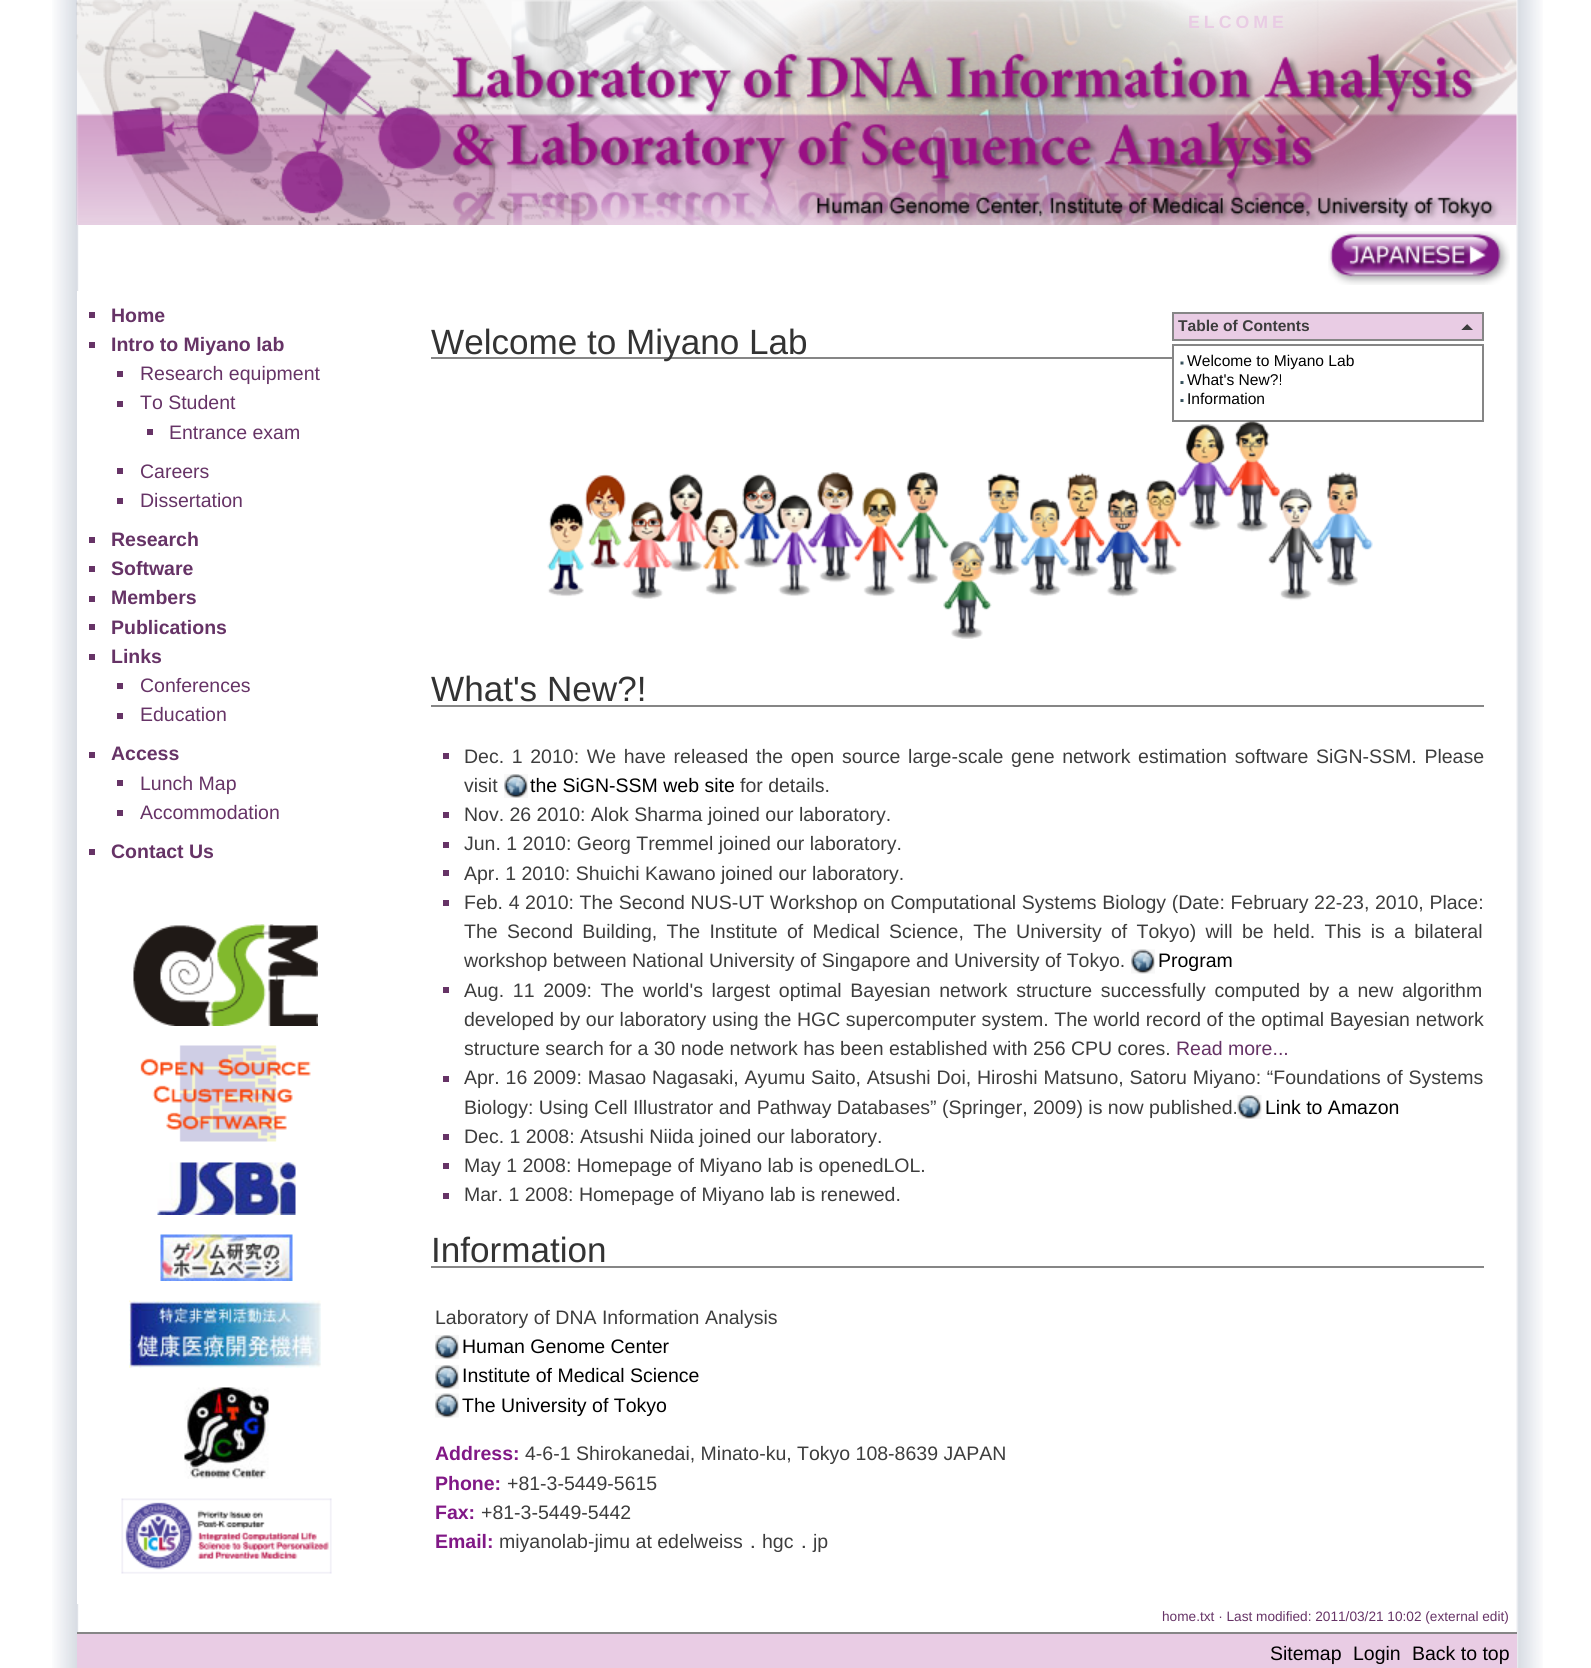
#include <cairo/cairo.h>
#include <math.h>
#include <stddef.h>

static cairo_t *cr;

static void use_color(int r, int g, int b) {
  cairo_set_source_rgb(cr, r / 255.0, g / 255.0, b / 255.0);
}

static void text(double x, double y, const char *s, const char *family, double size, int italic, int bold, int r, int g, int b) {
  cairo_select_font_face(cr, family, italic ? CAIRO_FONT_SLANT_ITALIC : CAIRO_FONT_SLANT_NORMAL,
    bold ? CAIRO_FONT_WEIGHT_BOLD : CAIRO_FONT_WEIGHT_NORMAL);
  cairo_set_font_size(cr, size);
  use_color(r, g, b);
  cairo_move_to(cr, x, y);
  cairo_show_text(cr, s);
}

static void spaced_text(double x, double y, const char *s, double letter, double word) {
  cairo_move_to(cr, x, y);
  while (*s) {
    char ch[5] = {0};
    int n = 0;
    do ch[n++] = *s++; while ((*s & 0xC0) == 0x80);
    cairo_show_text(cr, ch);
    cairo_rel_move_to(cr, letter + word * (*ch == ' '), 0);
  }
}

static void box(double x, double y, double w, double h, int r, int g, int b) {
  use_color(r, g, b);
  cairo_rectangle(cr, x, y, w, h);
  cairo_fill(cr);
}

static void picture(const char *path, double x, double y, double w, double h) {
  cairo_surface_t *image = cairo_image_surface_create_from_png(path);
  cairo_save(cr);
  cairo_set_source_surface(cr, image, x, y);
  cairo_rectangle(cr, x, y, w, h);
  cairo_fill(cr);
  cairo_restore(cr);
  cairo_surface_destroy(image);
}

static void draw(void) {
  use_color(255, 255, 255);
  cairo_paint(cr);
  picture("img_01.png", 52, 0, 1491, 1668);
  box(77, 0, 1440, 225, 248, 248, 248);
  picture("img_02.png", 76, 0, 1441, 225);
  picture("img_03.png", 1328, 231, 182, 54);
  box(77, 291, 2, 1313, 255, 255, 255);
  box(89, 312, 6, 6, 102, 51, 102);
  box(89, 342, 6, 6, 102, 51, 102);
  box(117, 371, 6, 6, 102, 51, 102);
  box(117, 401, 6, 6, 102, 51, 102);
  box(147, 429, 6, 6, 102, 51, 102);
  box(117, 468, 6, 6, 102, 51, 102);
  box(117, 498, 6, 6, 102, 51, 102);
  box(89, 537, 6, 6, 102, 51, 102);
  box(89, 566, 6, 6, 102, 51, 102);
  box(89, 596, 6, 6, 102, 51, 102);
  box(89, 624, 6, 6, 102, 51, 102);
  box(89, 654, 6, 6, 102, 51, 102);
  box(117, 683, 6, 6, 102, 51, 102);
  box(117, 713, 6, 6, 102, 51, 102);
  box(89, 752, 6, 6, 102, 51, 102);
  box(117, 780, 6, 6, 102, 51, 102);
  box(117, 810, 6, 6, 102, 51, 102);
  box(89, 849, 6, 6, 102, 51, 102);
  picture("img_04.png", 133, 924, 185, 102);
  picture("img_05.png", 140, 1045, 171, 97);
  picture("img_06.png", 157, 1162, 139, 53);
  picture("img_07.png", 160, 1234, 133, 47);
  picture("img_08.png", 129, 1300, 192, 68);
  picture("img_09.png", 184, 1387, 85, 92);
  picture("img_10.png", 121, 1498, 211, 76);
  box(431, 357, 741, 2, 134, 134, 134);
  use_color(233, 204, 228);
  cairo_rectangle(cr, 1173, 313, 310, 27);
  cairo_fill_preserve(cr);
  use_color(134, 134, 134);
  cairo_stroke(cr);
  use_color(61, 61, 61);
  cairo_new_path(cr);
  cairo_move_to(cr, 1473, 330);
  cairo_line_to(cr, 1461, 330);
  cairo_line_to(cr, 1467, 324);
  cairo_close_path(cr);
  cairo_fill(cr);
  use_color(233, 204, 228);
  cairo_new_path(cr);
  cairo_move_to(cr, 1461, 330);
  cairo_line_to(cr, 1461, 318);
  cairo_line_to(cr, 1467, 324);
  cairo_close_path(cr);
  cairo_fill(cr);
  cairo_rectangle(cr, 1173, 345, 310, 76);
  use_color(134, 134, 134);
  cairo_stroke(cr);
  picture("img_11.png", 1180, 361, 4, 4);
  picture("img_12.png", 1180, 381, 4, 3);
  picture("img_12.png", 1180, 399, 4, 3);
  picture("img_13.png", 547, 421, 826, 218);
  box(431, 705, 1053, 2, 134, 134, 134);
  box(443, 753, 6, 6, 102, 51, 102);
  picture("img_14.png", 504, 774, 24, 24);
  box(443, 812, 6, 6, 102, 51, 102);
  box(443, 842, 6, 6, 102, 51, 102);
  box(443, 870, 6, 6, 102, 51, 102);
  box(443, 900, 6, 6, 102, 51, 102);
  picture("img_15.png", 1131, 949, 24, 25);
  box(443, 987, 6, 6, 102, 51, 102);
  box(443, 1076, 6, 6, 102, 51, 102);
  picture("img_16.png", 1237, 1095, 25, 24);
  box(443, 1134, 6, 6, 102, 51, 102);
  box(443, 1163, 6, 6, 102, 51, 102);
  box(443, 1193, 6, 6, 102, 51, 102);
  box(431, 1266, 1053, 2, 134, 134, 134);
  picture("img_17.png", 435, 1335, 24, 24);
  picture("img_17.png", 435, 1365, 24, 24);
  picture("img_15.png", 435, 1393, 24, 25);
  box(77, 1634, 1440, 34, 233, 204, 228);
  box(77, 1632, 1440, 2, 134, 134, 134);
  cairo_select_font_face(cr, "Liberation Sans", CAIRO_FONT_SLANT_NORMAL, CAIRO_FONT_WEIGHT_BOLD);
  cairo_set_font_size(cr, 17.75);
  use_color(233, 204, 228);
  spaced_text(1188, 28, "ELCOME", 4, 0);
  text(111, 322, "Home", "Liberation Sans", 19.5, 0, 1, 102, 51, 102);
  text(111, 351, "Intro to Miyano lab", "Liberation Sans", 19.5, 0, 1, 102, 51, 102);
  text(140, 380, "Research equipment", "Liberation Sans", 19.5, 0, 0, 102, 51, 102);
  text(140, 409, "To Student", "Liberation Sans", 19.5, 0, 0, 102, 51, 102);
  text(169, 439, "Entrance exam", "Liberation Sans", 19.5, 0, 0, 102, 51, 102);
  text(140, 478, "Careers", "Liberation Sans", 19.5, 0, 0, 102, 51, 102);
  text(140, 507, "Dissertation", "Liberation Sans", 19.5, 0, 0, 102, 51, 102);
  text(111, 546, "Research", "Liberation Sans", 19.5, 0, 1, 102, 51, 102);
  text(111, 575, "Software", "Liberation Sans", 19.5, 0, 1, 102, 51, 102);
  text(111, 604, "Members", "Liberation Sans", 19.5, 0, 1, 102, 51, 102);
  text(111, 634, "Publications", "Liberation Sans", 19.5, 0, 1, 102, 51, 102);
  text(111, 663, "Links", "Liberation Sans", 19.5, 0, 1, 102, 51, 102);
  text(140, 692, "Conferences", "Liberation Sans", 19.5, 0, 0, 102, 51, 102);
  text(140, 721, "Education", "Liberation Sans", 19.5, 0, 0, 102, 51, 102);
  text(111, 760, "Access", "Liberation Sans", 19.5, 0, 1, 102, 51, 102);
  text(140, 790, "Lunch Map", "Liberation Sans", 19.5, 0, 0, 102, 51, 102);
  text(140, 819, "Accommodation", "Liberation Sans", 19.5, 0, 0, 102, 51, 102);
  text(111, 858, "Contact Us", "Liberation Sans", 19.5, 0, 1, 102, 51, 102);
  text(431, 354, "Welcome to Miyano Lab", "Liberation Sans", 35.1, 0, 0, 51, 51, 51);
  text(1178, 331, "Table of Contents", "Liberation Sans", 15.6, 0, 1, 61, 61, 61);
  text(1187, 366, "Welcome to Miyano Lab", "Liberation Sans", 15.6, 0, 0, 0, 0, 0);
  text(1187, 385, "What's New?!", "Liberation Sans", 15.6, 0, 0, 0, 0, 0);
  text(1187, 404, "Information", "Liberation Sans", 15.6, 0, 0, 0, 0, 0);
  text(431, 701, "What's New?!", "Liberation Sans", 35.1, 0, 0, 51, 51, 51);
  cairo_set_font_size(cr, 19.5);
  use_color(61, 61, 61);
  spaced_text(464, 763, "Dec. 1 2010: We have released the open source large-scale gene network estimation software SiGN-SSM. Please", 0, 2.25);
  text(464, 792, "visit", "Liberation Sans", 19.5, 0, 0, 61, 61, 61);
  text(530, 792, "the SiGN-SSM web site", "Liberation Sans", 19.5, 0, 0, 0, 0, 0);
  text(740, 792, "for details.", "Liberation Sans", 19.5, 0, 0, 61, 61, 61);
  text(464, 821, "Nov. 26 2010: Alok Sharma joined our laboratory.", "Liberation Sans", 19.5, 0, 0, 61, 61, 61);
  text(464, 850, "Jun. 1 2010: Georg Tremmel joined our laboratory.", "Liberation Sans", 19.5, 0, 0, 61, 61, 61);
  text(464, 880, "Apr. 1 2010: Shuichi Kawano joined our laboratory.", "Liberation Sans", 19.5, 0, 0, 61, 61, 61);
  spaced_text(464, 909, "Feb. 4 2010: The Second NUS-UT Workshop on Computational Systems Biology (Date: February 22-23, 2010, Place:", 0, 0.2);
  spaced_text(464, 938, "The Second Building, The Institute of Medical Science, The University of Tokyo) will be held. This is a bilateral", 0, 3.9);
  text(464, 967, "workshop between National University of Singapore and University of Tokyo.", "Liberation Sans", 19.5, 0, 0, 61, 61, 61);
  text(1158, 967, "Program", "Liberation Sans", 19.5, 0, 0, 0, 0, 0);
  use_color(61, 61, 61);
  spaced_text(464, 997, "Aug. 11 2009: The world's largest optimal Bayesian network structure successfully computed by a new algorithm", 0, 3.25);
  spaced_text(464, 1026, "developed by our laboratory using the HGC supercomputer system. The world record of the optimal Bayesian network", 0, 0.2);
  text(464, 1055, "structure search for a 30 node network has been established with 256 CPU cores.", "Liberation Sans", 19.5, 0, 0, 61, 61, 61);
  text(1176, 1055, "Read more...", "Liberation Sans", 19.5, 0, 0, 102, 51, 102);
  use_color(61, 61, 61);
  spaced_text(464, 1084, "Apr. 16 2009: Masao Nagasaki, Ayumu Saito, Atsushi Doi, Hiroshi Matsuno, Satoru Miyano: “Foundations of Systems", 0, 0.4);
  text(464, 1114, "Biology: Using Cell Illustrator and Pathway Databases” (Springer, 2009) is now published.", "Liberation Sans", 19.5, 0, 0, 61, 61, 61);
  text(1265, 1114, "Link to Amazon", "Liberation Sans", 19.5, 0, 0, 0, 0, 0);
  text(464, 1143, "Dec. 1 2008: Atsushi Niida joined our laboratory.", "Liberation Sans", 19.5, 0, 0, 61, 61, 61);
  text(464, 1172, "May 1 2008: Homepage of Miyano lab is openedLOL.", "Liberation Sans", 19.5, 0, 0, 61, 61, 61);
  text(464, 1201, "Mar. 1 2008: Homepage of Miyano lab is renewed.", "Liberation Sans", 19.5, 0, 0, 61, 61, 61);
  text(431, 1262, "Information", "Liberation Sans", 35.1, 0, 0, 51, 51, 51);
  text(435, 1324, "Laboratory of DNA Information Analysis", "Liberation Sans", 19.5, 0, 0, 61, 61, 61);
  text(462, 1353, "Human Genome Center", "Liberation Sans", 19.5, 0, 0, 0, 0, 0);
  text(462, 1382, "Institute of Medical Science", "Liberation Sans", 19.5, 0, 0, 0, 0, 0);
  text(462, 1412, "The University of Tokyo", "Liberation Sans", 19.5, 0, 0, 0, 0, 0);
  text(435, 1460, "Address:", "Liberation Sans", 19.5, 0, 1, 129, 24, 134);
  text(525, 1460, "4-6-1 Shirokanedai, Minato-ku, Tokyo 108-8639 JAPAN", "Liberation Sans", 19.5, 0, 0, 61, 61, 61);
  text(435, 1490, "Phone:", "Liberation Sans", 19.5, 0, 1, 129, 24, 134);
  text(507, 1490, "+81-3-5449-5615", "Liberation Sans", 19.5, 0, 0, 61, 61, 61);
  text(435, 1519, "Fax:", "Liberation Sans", 19.5, 0, 1, 129, 24, 134);
  text(481, 1519, "+81-3-5449-5442", "Liberation Sans", 19.5, 0, 0, 61, 61, 61);
  text(435, 1548, "Email:", "Liberation Sans", 19.5, 0, 1, 129, 24, 134);
  text(499, 1548, "miyanolab-jimu at edelweiss", "Liberation Sans", 19.5, 0, 0, 61, 61, 61);
  text(743, 1548, "．", "WenQuanYi Zen Hei Medium", 19.5, 0, 0, 61, 61, 61);
  text(762, 1548, "hgc", "Liberation Sans", 19.5, 0, 0, 61, 61, 61);
  text(794, 1548, "．", "WenQuanYi Zen Hei Medium", 19.5, 0, 0, 61, 61, 61);
  text(813, 1548, "jp", "Liberation Sans", 19.5, 0, 0, 61, 61, 61);
  text(1162, 1621, "home.txt · Last modified: 2011/03/21 10:02 (external edit)", "Liberation Sans", 13.65, 0, 0, 102, 51, 102);
  text(1270, 1660, "Sitemap", "Liberation Sans", 19.5, 0, 0, 0, 0, 0);
  text(1353, 1660, "Login", "Liberation Sans", 19.5, 0, 0, 0, 0, 0);
  text(1412, 1660, "Back to top", "Liberation Sans", 19.5, 0, 0, 0, 0, 0);
}

int main(void) {
  cairo_surface_t *surface = cairo_image_surface_create(CAIRO_FORMAT_RGB24, 1591, 1668);
  cr = cairo_create(surface);
  cairo_font_options_t *options = cairo_font_options_create();
  cairo_font_options_set_hint_metrics(options, CAIRO_HINT_METRICS_OFF);
  cairo_font_options_set_hint_style(options, CAIRO_HINT_STYLE_NONE);
  cairo_set_font_options(cr, options);
  cairo_set_miter_limit(cr, 4);
  draw();
  cairo_surface_write_to_png(surface, "out.png");
  cairo_font_options_destroy(options);
  cairo_destroy(cr);
  cairo_surface_destroy(surface);
  return 0;
}
